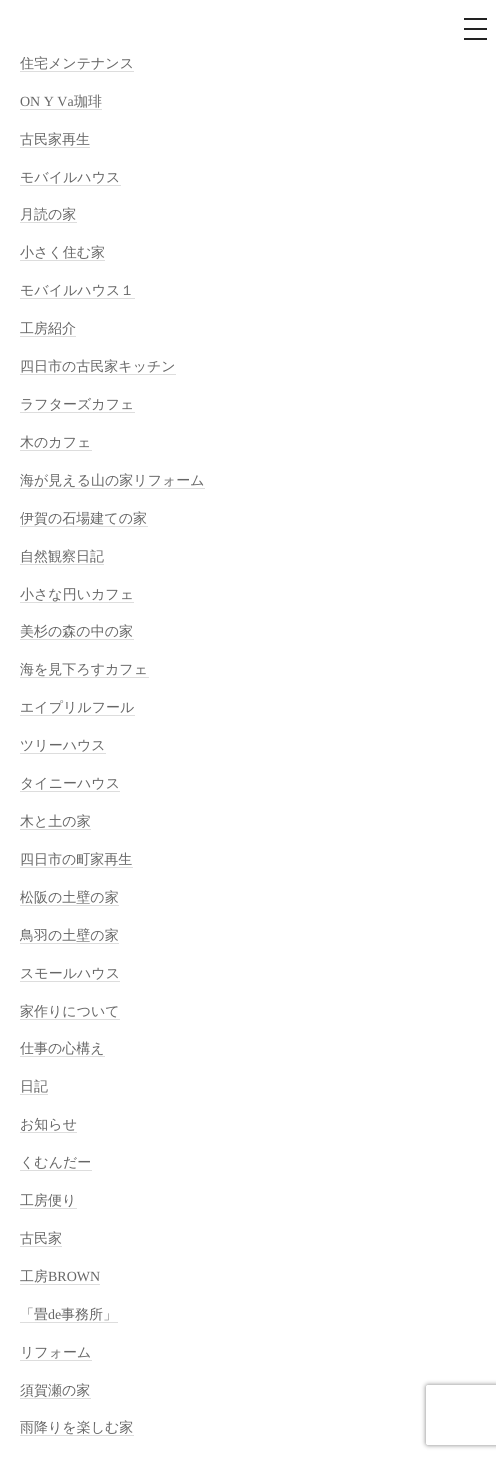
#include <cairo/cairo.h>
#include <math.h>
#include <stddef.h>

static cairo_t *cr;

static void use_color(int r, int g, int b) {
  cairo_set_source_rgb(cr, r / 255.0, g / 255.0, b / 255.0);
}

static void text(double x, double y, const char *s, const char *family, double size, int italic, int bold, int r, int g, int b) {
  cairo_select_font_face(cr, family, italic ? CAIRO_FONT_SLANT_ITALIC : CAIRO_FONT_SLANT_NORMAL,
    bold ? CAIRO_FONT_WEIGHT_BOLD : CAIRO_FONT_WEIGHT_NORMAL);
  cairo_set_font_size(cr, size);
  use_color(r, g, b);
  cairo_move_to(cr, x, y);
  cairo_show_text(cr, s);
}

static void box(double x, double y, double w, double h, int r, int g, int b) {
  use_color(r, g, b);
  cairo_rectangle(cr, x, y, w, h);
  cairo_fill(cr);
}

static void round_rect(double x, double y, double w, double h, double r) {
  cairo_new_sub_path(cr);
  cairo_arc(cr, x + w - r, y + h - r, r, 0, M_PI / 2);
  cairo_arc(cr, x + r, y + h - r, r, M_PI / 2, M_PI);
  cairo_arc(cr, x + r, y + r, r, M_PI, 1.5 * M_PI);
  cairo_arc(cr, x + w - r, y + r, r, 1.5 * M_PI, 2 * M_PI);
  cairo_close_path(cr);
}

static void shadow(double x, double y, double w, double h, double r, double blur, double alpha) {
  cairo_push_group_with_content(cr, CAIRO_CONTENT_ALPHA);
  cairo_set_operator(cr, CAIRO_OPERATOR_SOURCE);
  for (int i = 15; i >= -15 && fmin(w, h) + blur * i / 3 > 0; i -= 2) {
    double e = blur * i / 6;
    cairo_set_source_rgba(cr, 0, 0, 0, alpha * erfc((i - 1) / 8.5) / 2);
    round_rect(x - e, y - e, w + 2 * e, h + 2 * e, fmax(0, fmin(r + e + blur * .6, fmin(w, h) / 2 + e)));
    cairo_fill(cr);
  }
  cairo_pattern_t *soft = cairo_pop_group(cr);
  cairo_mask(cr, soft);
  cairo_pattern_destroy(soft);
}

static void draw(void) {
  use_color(255, 255, 255);
  cairo_paint(cr);
  box(464, 28, 23, 2, 34, 34, 34);
  box(464, 18, 23, 2, 34, 34, 34);
  box(464, 38, 23, 2, 34, 34, 34);
  box(20, 71, 114, 1, 221, 221, 221);
  box(20, 109, 82, 1, 221, 221, 221);
  box(20, 147, 70, 1, 221, 221, 221);
  box(20, 185, 101, 1, 221, 221, 221);
  box(20, 222, 57, 1, 221, 221, 221);
  box(20, 260, 85, 1, 221, 221, 221);
  box(20, 298, 115, 1, 221, 221, 221);
  box(20, 336, 56, 1, 221, 221, 221);
  box(20, 374, 156, 1, 221, 221, 221);
  box(20, 412, 115, 1, 221, 221, 221);
  box(20, 450, 72, 1, 221, 221, 221);
  box(20, 488, 185, 1, 221, 221, 221);
  box(20, 526, 128, 1, 221, 221, 221);
  box(20, 564, 84, 1, 221, 221, 221);
  box(20, 602, 114, 1, 221, 221, 221);
  box(20, 639, 114, 1, 221, 221, 221);
  box(20, 677, 129, 1, 221, 221, 221);
  box(20, 715, 115, 1, 221, 221, 221);
  box(20, 753, 86, 1, 221, 221, 221);
  box(20, 791, 100, 1, 221, 221, 221);
  box(20, 829, 71, 1, 221, 221, 221);
  box(20, 867, 113, 1, 221, 221, 221);
  box(20, 905, 99, 1, 221, 221, 221);
  box(20, 943, 99, 1, 221, 221, 221);
  box(20, 981, 100, 1, 221, 221, 221);
  box(20, 1019, 100, 1, 221, 221, 221);
  box(20, 1056, 85, 1, 221, 221, 221);
  box(20, 1094, 28, 1, 221, 221, 221);
  box(20, 1132, 57, 1, 221, 221, 221);
  box(20, 1170, 72, 1, 221, 221, 221);
  box(20, 1208, 57, 1, 221, 221, 221);
  box(20, 1246, 42, 1, 221, 221, 221);
  box(20, 1284, 80, 1, 221, 221, 221);
  box(20, 1322, 98, 1, 221, 221, 221);
  box(20, 1360, 72, 1, 221, 221, 221);
  box(20, 1398, 71, 1, 221, 221, 221);
  box(20, 1435, 114, 1, 221, 221, 221);
  cairo_save(cr);
  cairo_set_fill_rule(cr, CAIRO_FILL_RULE_EVEN_ODD);
  cairo_new_path(cr);
  cairo_move_to(cr, 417, 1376);
  cairo_line_to(cr, 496, 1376);
  cairo_line_to(cr, 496, 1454);
  cairo_line_to(cr, 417, 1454);
  cairo_close_path(cr);
  cairo_move_to(cr, 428, 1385);
  cairo_line_to(cr, 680, 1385);
  cairo_curve_to(cr, 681, 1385, 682, 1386, 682, 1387);
  cairo_line_to(cr, 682, 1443);
  cairo_curve_to(cr, 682, 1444, 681, 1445, 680, 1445);
  cairo_line_to(cr, 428, 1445);
  cairo_curve_to(cr, 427, 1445, 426, 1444, 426, 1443);
  cairo_line_to(cr, 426, 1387);
  cairo_curve_to(cr, 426, 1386, 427, 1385, 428, 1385);
  cairo_close_path(cr);
  cairo_clip(cr);
  use_color(128, 128, 128);
  shadow(426, 1385, 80, 60, 2, 2.5, 1);
  cairo_restore(cr);
  text(20, 68, "住宅メンテナンス", "WenQuanYi Zen Hei Medium", 14, 0, 0, 102, 102, 102);
  text(20, 106, "ON Y Va", "Liberation Serif", 14, 0, 0, 102, 102, 102);
  text(74, 106, "珈琲", "WenQuanYi Zen Hei Medium", 14, 0, 0, 102, 102, 102);
  text(20, 144, "古民家再生", "WenQuanYi Zen Hei Medium", 14, 0, 0, 102, 102, 102);
  text(20, 182, "モバイルハウス", "WenQuanYi Zen Hei Medium", 14, 0, 0, 102, 102, 102);
  text(20, 219, "月読の家", "WenQuanYi Zen Hei Medium", 14, 0, 0, 102, 102, 102);
  text(20, 257, "小さく住む家", "WenQuanYi Zen Hei Medium", 14, 0, 0, 102, 102, 102);
  text(20, 295, "モバイルハウス１", "WenQuanYi Zen Hei Medium", 14, 0, 0, 102, 102, 102);
  text(20, 333, "工房紹介", "WenQuanYi Zen Hei Medium", 14, 0, 0, 102, 102, 102);
  text(20, 371, "四日市の古民家キッチン", "WenQuanYi Zen Hei Medium", 14, 0, 0, 102, 102, 102);
  text(20, 409, "ラフターズカフェ", "WenQuanYi Zen Hei Medium", 14, 0, 0, 102, 102, 102);
  text(20, 447, "木のカフェ", "WenQuanYi Zen Hei Medium", 14, 0, 0, 102, 102, 102);
  text(20, 485, "海が見える山の家リフォーム", "WenQuanYi Zen Hei Medium", 14, 0, 0, 102, 102, 102);
  text(20, 523, "伊賀の石場建ての家", "WenQuanYi Zen Hei Medium", 14, 0, 0, 102, 102, 102);
  text(20, 561, "自然観察日記", "WenQuanYi Zen Hei Medium", 14, 0, 0, 102, 102, 102);
  text(20, 599, "小さな円いカフェ", "WenQuanYi Zen Hei Medium", 14, 0, 0, 102, 102, 102);
  text(20, 636, "美杉の森の中の家", "WenQuanYi Zen Hei Medium", 14, 0, 0, 102, 102, 102);
  text(20, 674, "海を見下ろすカフェ", "WenQuanYi Zen Hei Medium", 14, 0, 0, 102, 102, 102);
  text(20, 712, "エイプリルフール", "WenQuanYi Zen Hei Medium", 14, 0, 0, 102, 102, 102);
  text(20, 750, "ツリーハウス", "WenQuanYi Zen Hei Medium", 14, 0, 0, 102, 102, 102);
  text(20, 788, "タイニーハウス", "WenQuanYi Zen Hei Medium", 14, 0, 0, 102, 102, 102);
  text(20, 826, "木と土の家", "WenQuanYi Zen Hei Medium", 14, 0, 0, 102, 102, 102);
  text(20, 864, "四日市の町家再生", "WenQuanYi Zen Hei Medium", 14, 0, 0, 102, 102, 102);
  text(20, 902, "松阪の土壁の家", "WenQuanYi Zen Hei Medium", 14, 0, 0, 102, 102, 102);
  text(20, 940, "鳥羽の土壁の家", "WenQuanYi Zen Hei Medium", 14, 0, 0, 102, 102, 102);
  text(20, 978, "スモールハウス", "WenQuanYi Zen Hei Medium", 14, 0, 0, 102, 102, 102);
  text(20, 1016, "家作りについて", "WenQuanYi Zen Hei Medium", 14, 0, 0, 102, 102, 102);
  text(20, 1053, "仕事の心構え", "WenQuanYi Zen Hei Medium", 14, 0, 0, 102, 102, 102);
  text(20, 1091, "日記", "WenQuanYi Zen Hei Medium", 14, 0, 0, 102, 102, 102);
  text(20, 1129, "お知らせ", "WenQuanYi Zen Hei Medium", 14, 0, 0, 102, 102, 102);
  text(20, 1167, "くむんだー", "WenQuanYi Zen Hei Medium", 14, 0, 0, 102, 102, 102);
  text(20, 1205, "工房便り", "WenQuanYi Zen Hei Medium", 14, 0, 0, 102, 102, 102);
  text(20, 1243, "古民家", "WenQuanYi Zen Hei Medium", 14, 0, 0, 102, 102, 102);
  text(20, 1281, "工房", "WenQuanYi Zen Hei Medium", 14, 0, 0, 102, 102, 102);
  text(48, 1281, "BROWN", "Liberation Serif", 14, 0, 0, 102, 102, 102);
  text(20, 1319, "「畳", "WenQuanYi Zen Hei Medium", 14, 0, 0, 102, 102, 102);
  text(48, 1319, "de", "Liberation Serif", 14, 0, 0, 102, 102, 102);
  text(61, 1319, "事務所」", "WenQuanYi Zen Hei Medium", 14, 0, 0, 102, 102, 102);
  text(20, 1357, "リフォーム", "WenQuanYi Zen Hei Medium", 14, 0, 0, 102, 102, 102);
  text(20, 1395, "須賀瀬の家", "WenQuanYi Zen Hei Medium", 14, 0, 0, 102, 102, 102);
  text(20, 1432, "雨降りを楽しむ家", "WenQuanYi Zen Hei Medium", 14, 0, 0, 102, 102, 102);
}

int main(void) {
  cairo_surface_t *surface = cairo_image_surface_create(CAIRO_FORMAT_RGB24, 496, 1459);
  cr = cairo_create(surface);
  cairo_font_options_t *options = cairo_font_options_create();
  cairo_font_options_set_hint_metrics(options, CAIRO_HINT_METRICS_OFF);
  cairo_font_options_set_hint_style(options, CAIRO_HINT_STYLE_NONE);
  cairo_set_font_options(cr, options);
  cairo_set_miter_limit(cr, 4);
  draw();
  cairo_surface_write_to_png(surface, "out.png");
  cairo_font_options_destroy(options);
  cairo_destroy(cr);
  cairo_surface_destroy(surface);
  return 0;
}
